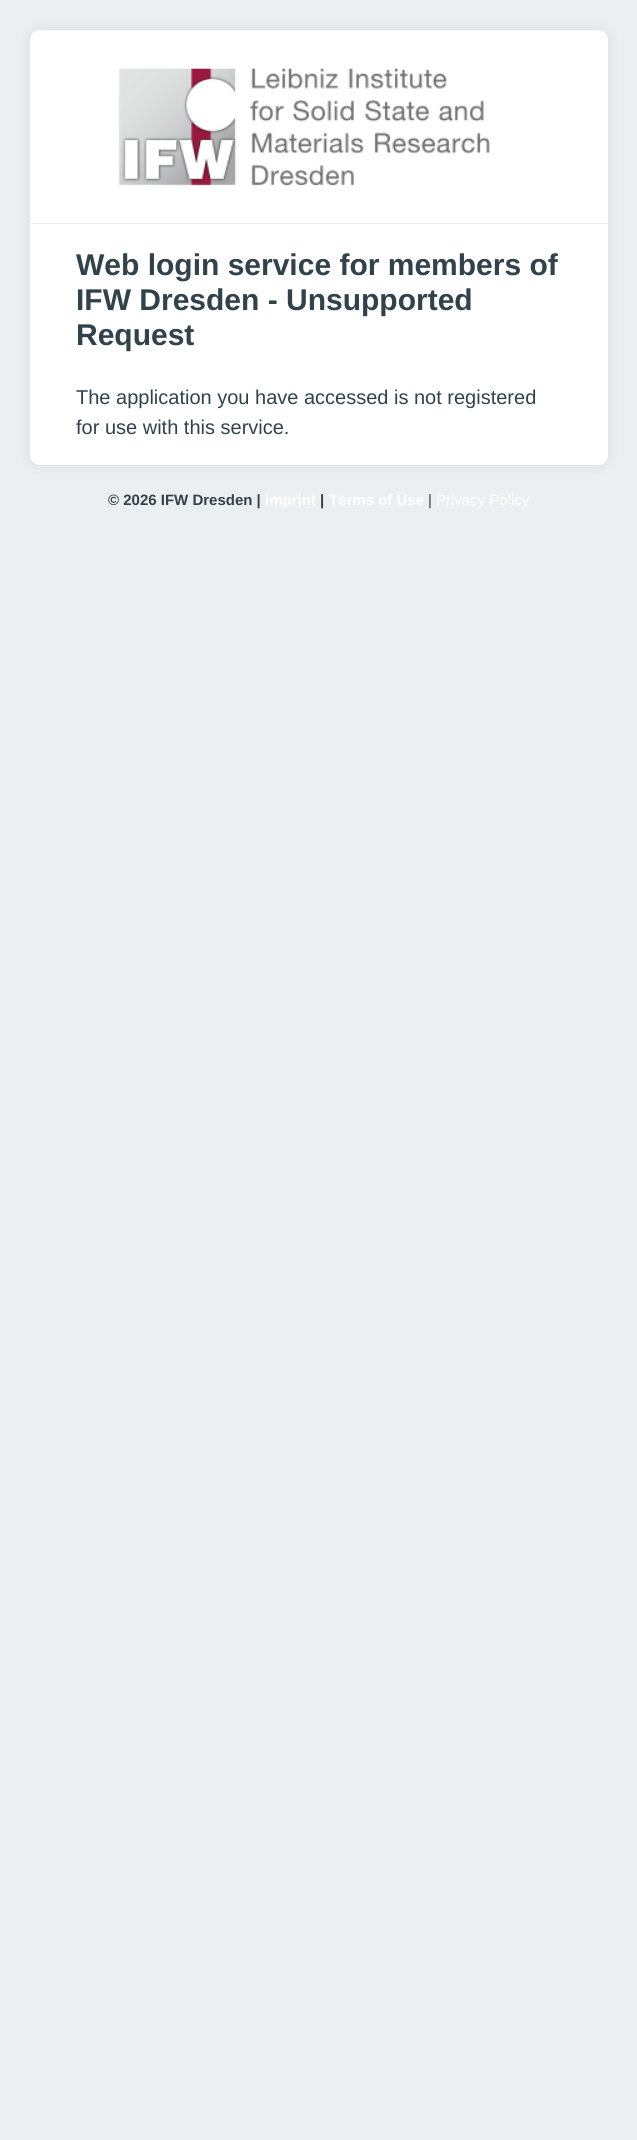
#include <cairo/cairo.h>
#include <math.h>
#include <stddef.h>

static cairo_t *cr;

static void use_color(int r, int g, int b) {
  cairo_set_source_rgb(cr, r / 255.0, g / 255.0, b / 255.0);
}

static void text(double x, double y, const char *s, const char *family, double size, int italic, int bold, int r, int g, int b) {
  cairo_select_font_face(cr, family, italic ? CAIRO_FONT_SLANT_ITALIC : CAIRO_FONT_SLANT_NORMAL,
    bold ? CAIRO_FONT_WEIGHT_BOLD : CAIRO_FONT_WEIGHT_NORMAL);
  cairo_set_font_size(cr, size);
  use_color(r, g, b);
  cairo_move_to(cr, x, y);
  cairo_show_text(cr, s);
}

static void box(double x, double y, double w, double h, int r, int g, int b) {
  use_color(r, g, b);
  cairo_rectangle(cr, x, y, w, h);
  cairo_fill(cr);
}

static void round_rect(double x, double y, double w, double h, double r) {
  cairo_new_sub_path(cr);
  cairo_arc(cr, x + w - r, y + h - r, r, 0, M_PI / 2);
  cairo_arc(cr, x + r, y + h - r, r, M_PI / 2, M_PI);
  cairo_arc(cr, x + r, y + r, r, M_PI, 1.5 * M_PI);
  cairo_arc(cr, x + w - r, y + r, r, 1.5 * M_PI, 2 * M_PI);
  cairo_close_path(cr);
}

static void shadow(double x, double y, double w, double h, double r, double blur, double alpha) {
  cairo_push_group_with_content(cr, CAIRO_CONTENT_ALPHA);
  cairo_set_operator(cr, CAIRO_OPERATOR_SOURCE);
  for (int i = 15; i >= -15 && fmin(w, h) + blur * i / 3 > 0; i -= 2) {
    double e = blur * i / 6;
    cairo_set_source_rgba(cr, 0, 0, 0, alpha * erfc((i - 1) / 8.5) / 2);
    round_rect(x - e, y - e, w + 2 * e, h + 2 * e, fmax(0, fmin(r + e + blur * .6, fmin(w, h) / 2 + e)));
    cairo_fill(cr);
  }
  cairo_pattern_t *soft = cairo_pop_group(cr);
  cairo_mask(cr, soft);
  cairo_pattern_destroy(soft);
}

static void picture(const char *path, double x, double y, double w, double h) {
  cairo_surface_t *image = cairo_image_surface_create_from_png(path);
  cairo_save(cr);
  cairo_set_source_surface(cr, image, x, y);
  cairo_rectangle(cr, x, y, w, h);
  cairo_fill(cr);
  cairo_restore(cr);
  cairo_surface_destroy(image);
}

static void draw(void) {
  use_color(236, 239, 241);
  cairo_paint(cr);
  use_color(38, 50, 56);
  shadow(30, 30, 578, 435, 10, 6, 0.11);
  use_color(255, 255, 255);
  round_rect(30, 30, 578, 435, 10);
  cairo_fill(cr);
  box(30, 223, 578, 1, 236, 239, 241);
  picture("img_01.png", 118, 68, 373, 118);
  text(76, 275, "Web login service for members of", "Liberation Sans", 30, 0, 1, 50, 66, 74);
  text(76, 310, "IFW Dresden - Unsupported", "Liberation Sans", 30, 0, 1, 50, 66, 74);
  text(76, 345, "Request", "Liberation Sans", 30, 0, 1, 50, 66, 74);
  text(76, 404, "The application you have accessed is not registered", "Liberation Sans", 20, 0, 0, 50, 66, 74);
  text(76, 434, "for use with this service.", "Liberation Sans", 20, 0, 0, 50, 66, 74);
  text(108, 505, "© 2026 IFW Dresden |", "Liberation Sans", 15, 0, 1, 50, 66, 74);
  text(265, 505, "Imprint", "Liberation Sans", 15, 0, 1, 255, 255, 255);
  text(320, 505, "|", "Liberation Sans", 15, 0, 1, 50, 66, 74);
  text(329, 505, "Terms of Use", "Liberation Sans", 15, 0, 1, 255, 255, 255);
  text(428, 505, "|", "Liberation Sans", 15, 0, 0, 50, 66, 74);
  text(436, 505, "Privacy Policy", "Liberation Sans", 15, 0, 0, 255, 255, 255);
}

int main(void) {
  cairo_surface_t *surface = cairo_image_surface_create(CAIRO_FORMAT_RGB24, 637, 2140);
  cr = cairo_create(surface);
  cairo_font_options_t *options = cairo_font_options_create();
  cairo_font_options_set_hint_metrics(options, CAIRO_HINT_METRICS_OFF);
  cairo_font_options_set_hint_style(options, CAIRO_HINT_STYLE_NONE);
  cairo_set_font_options(cr, options);
  cairo_set_miter_limit(cr, 4);
  draw();
  cairo_surface_write_to_png(surface, "out.png");
  cairo_font_options_destroy(options);
  cairo_destroy(cr);
  cairo_surface_destroy(surface);
  return 0;
}
